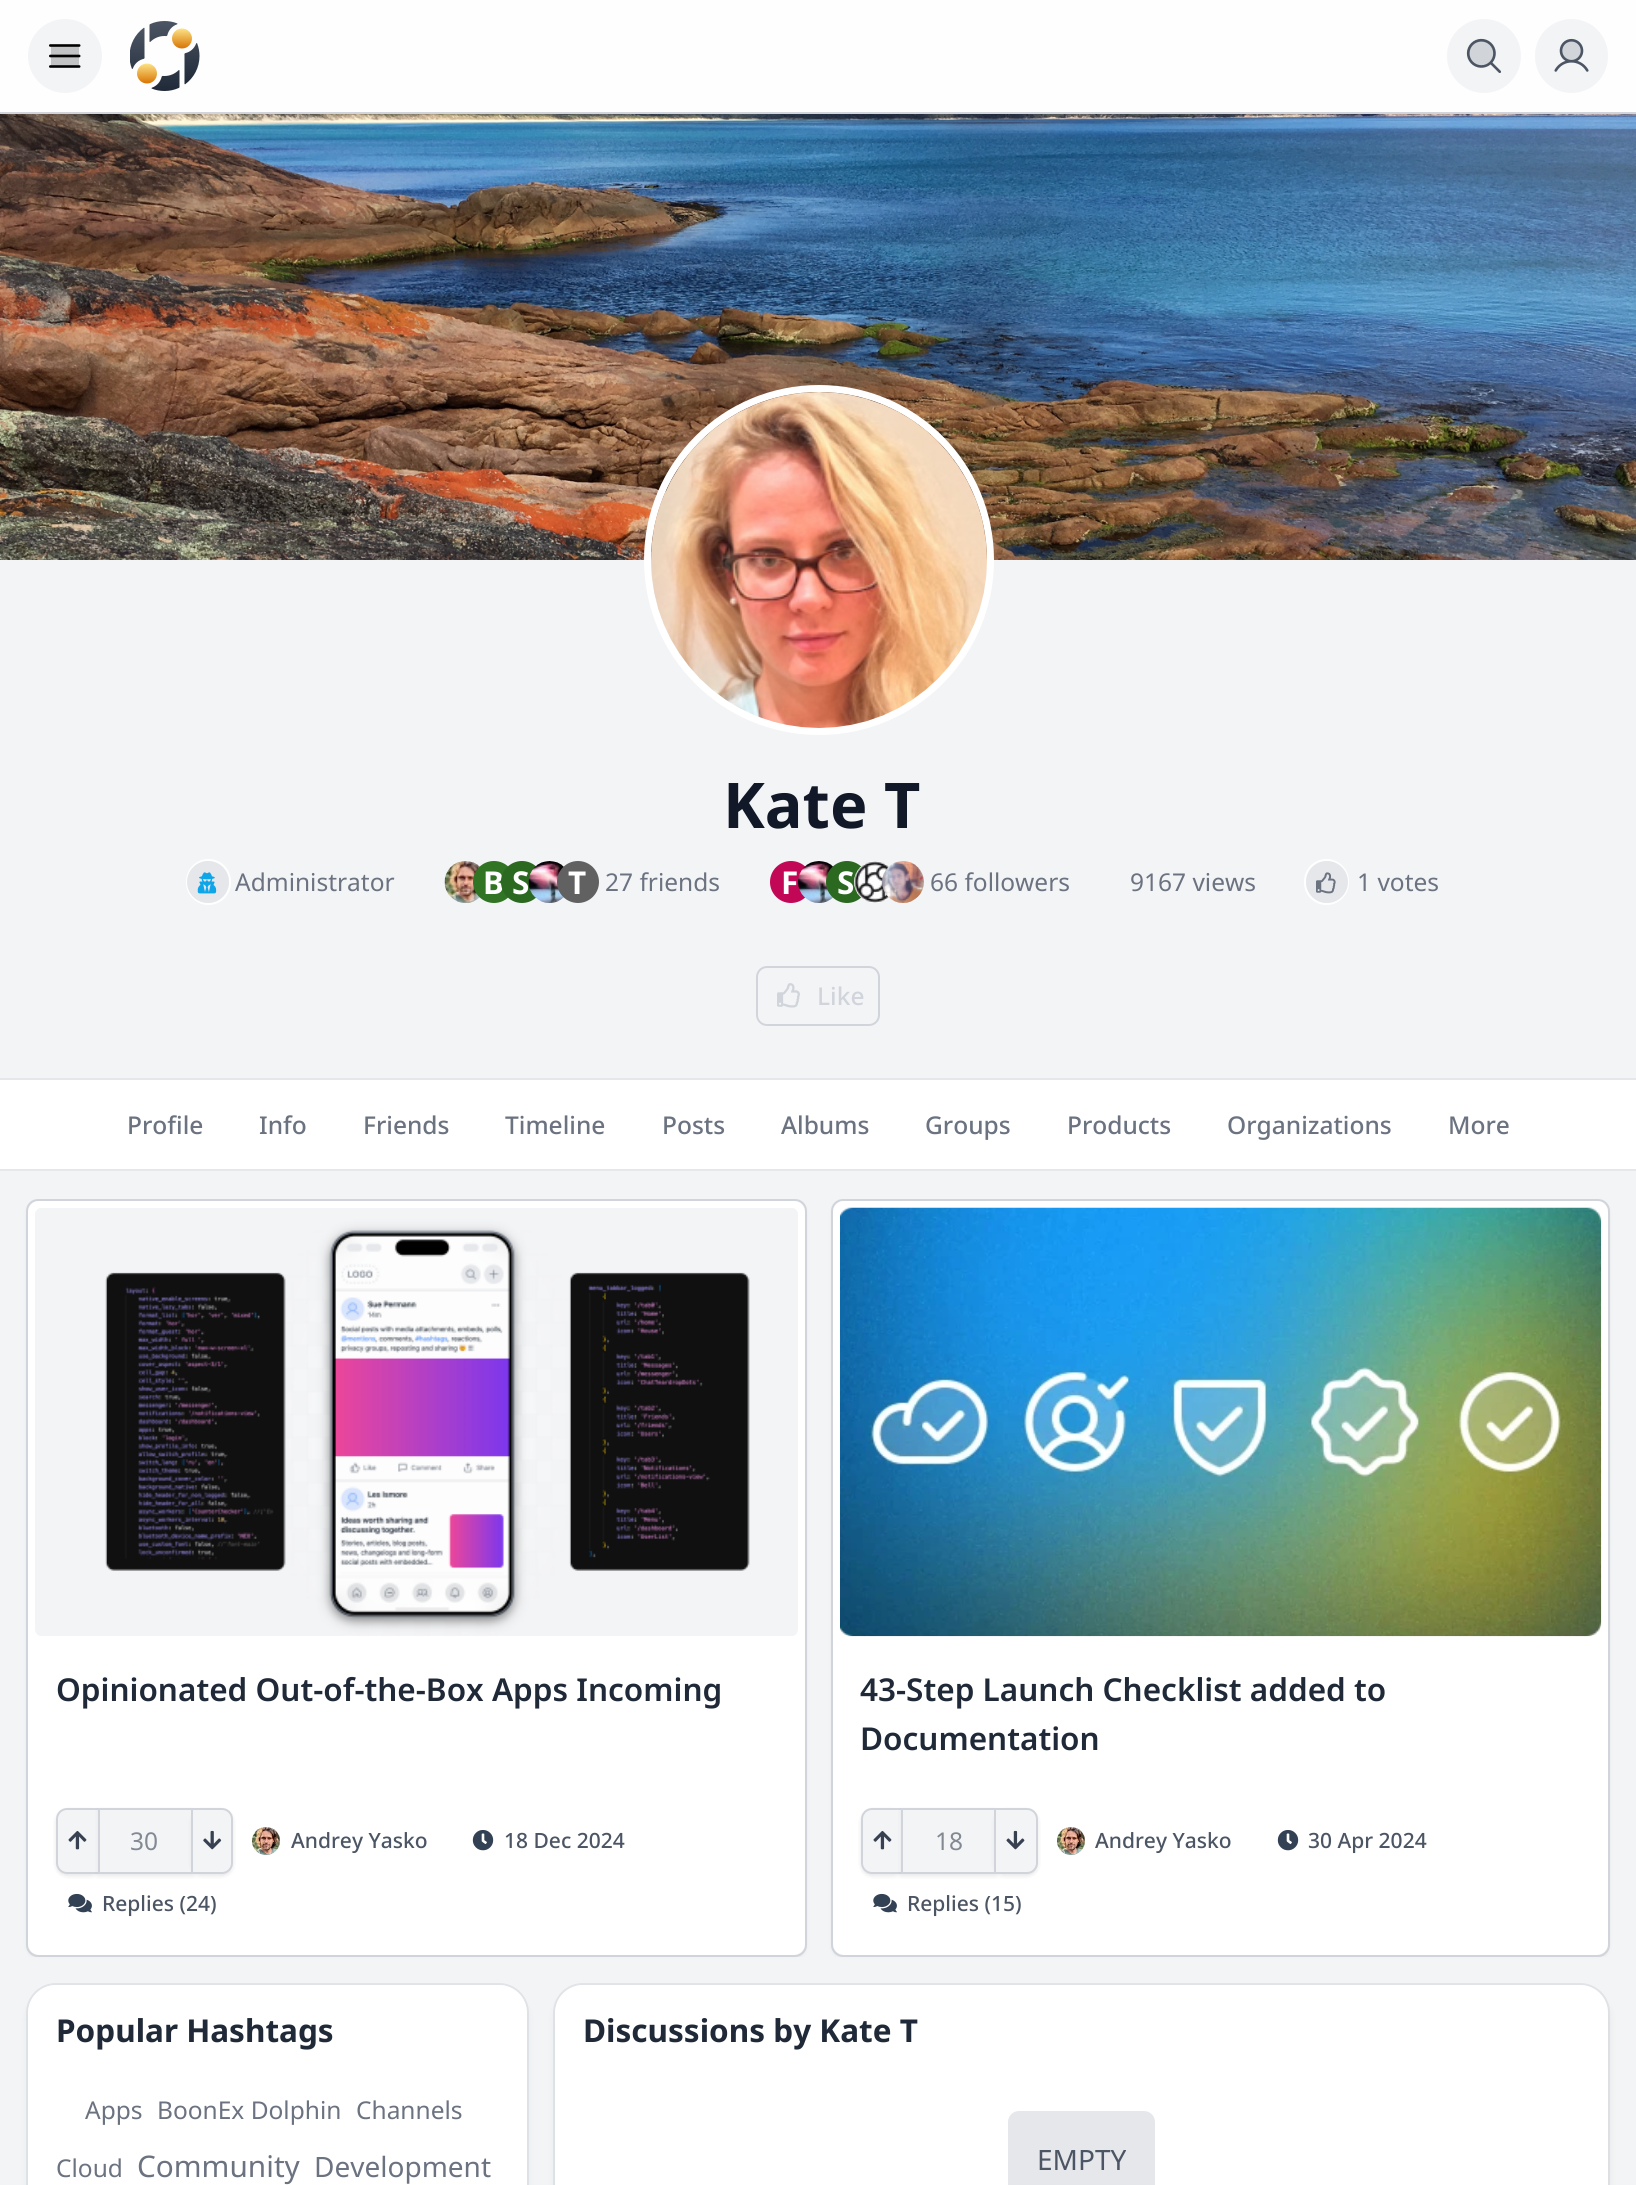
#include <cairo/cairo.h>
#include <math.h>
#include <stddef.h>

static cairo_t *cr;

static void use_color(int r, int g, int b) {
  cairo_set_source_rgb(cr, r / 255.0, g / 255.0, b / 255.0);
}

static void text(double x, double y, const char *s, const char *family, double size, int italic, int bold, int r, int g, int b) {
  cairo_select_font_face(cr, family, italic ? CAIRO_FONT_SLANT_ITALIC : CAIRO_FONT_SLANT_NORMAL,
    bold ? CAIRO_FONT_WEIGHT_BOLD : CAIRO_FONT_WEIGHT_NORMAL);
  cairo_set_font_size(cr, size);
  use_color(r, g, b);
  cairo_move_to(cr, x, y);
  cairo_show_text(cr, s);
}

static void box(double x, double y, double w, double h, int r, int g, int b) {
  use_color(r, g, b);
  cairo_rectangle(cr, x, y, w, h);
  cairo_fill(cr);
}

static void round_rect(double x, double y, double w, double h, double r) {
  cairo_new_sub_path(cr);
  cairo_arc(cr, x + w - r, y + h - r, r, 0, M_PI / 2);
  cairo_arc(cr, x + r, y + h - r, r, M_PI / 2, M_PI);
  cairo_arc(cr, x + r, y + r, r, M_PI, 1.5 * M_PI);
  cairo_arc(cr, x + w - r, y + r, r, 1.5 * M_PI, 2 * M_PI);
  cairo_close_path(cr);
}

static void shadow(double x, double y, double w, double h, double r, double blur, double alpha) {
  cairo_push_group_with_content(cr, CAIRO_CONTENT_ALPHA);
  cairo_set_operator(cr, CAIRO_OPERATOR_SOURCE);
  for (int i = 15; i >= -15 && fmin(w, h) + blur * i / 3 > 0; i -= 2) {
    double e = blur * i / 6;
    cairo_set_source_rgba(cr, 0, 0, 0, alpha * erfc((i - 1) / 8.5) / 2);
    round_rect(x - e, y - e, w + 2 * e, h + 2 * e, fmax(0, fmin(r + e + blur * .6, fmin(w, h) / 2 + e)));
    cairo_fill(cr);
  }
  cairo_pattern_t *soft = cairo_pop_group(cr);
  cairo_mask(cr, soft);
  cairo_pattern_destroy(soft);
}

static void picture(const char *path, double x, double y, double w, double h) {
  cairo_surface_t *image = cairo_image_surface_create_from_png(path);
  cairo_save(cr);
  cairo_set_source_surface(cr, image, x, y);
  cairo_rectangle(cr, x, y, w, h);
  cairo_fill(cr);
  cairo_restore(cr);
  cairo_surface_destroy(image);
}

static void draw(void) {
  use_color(243, 244, 246);
  cairo_paint(cr);
  picture("img_05.png", 0, 114, 1636, 446);
  use_color(0, 0, 0);
  shadow(0, 2, 1636, 112, 0, 2.5, 0.1);
  cairo_rectangle(cr, -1, -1, 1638, 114);
  use_color(209, 213, 219);
  cairo_stroke(cr);
  box(0, 0, 1636, 112, 254, 254, 255);
  use_color(243, 244, 246);
  cairo_arc(cr, 65, 56, 37, 0, 2 * M_PI);
  cairo_fill(cr);
  picture("img_01.png", 49, 44, 32, 24);
  picture("img_02.png", 130, 21, 70, 70);
  cairo_arc(cr, 1484, 56, 37, 0, 2 * M_PI);
  cairo_fill(cr);
  picture("img_03.png", 1466, 38, 35, 35);
  round_rect(1535, 19, 73, 74, 36.5);
  cairo_fill(cr);
  picture("img_04.png", 1554, 38, 35, 34);
  cairo_arc(cr, 819, 560, 171.5, 0, 2 * M_PI);
  use_color(255, 255, 255);
  cairo_set_line_width(cr, 7);
  cairo_stroke(cr);
  picture("img_06.png", 651, 392, 336, 336);
  round_rect(187, 860, 43, 44, 21.5);
  cairo_set_line_width(cr, 2);
  cairo_stroke(cr);
  use_color(229, 231, 235);
  cairo_arc(cr, 208, 882, 21, 0, 2 * M_PI);
  cairo_fill(cr);
  picture("img_07.png", 197, 872, 20, 22);
  picture("img_08.png", 444, 861, 36, 42);
  use_color(48, 116, 36);
  cairo_arc(cr, 494, 882, 21, 0, 2 * M_PI);
  cairo_fill(cr);
  use_color(194, 7, 86);
  cairo_arc(cr, 791, 882, 21, 0, 2 * M_PI);
  cairo_fill(cr);
  picture("img_10.png", 798, 861, 36, 42);
  use_color(43, 104, 32);
  cairo_arc(cr, 847, 882, 21, 0, 2 * M_PI);
  cairo_fill(cr);
  picture("img_11.png", 854, 861, 36, 42);
  picture("img_12.png", 882, 861, 42, 42);
  round_rect(1305, 860, 43, 44, 21.5);
  use_color(255, 255, 255);
  cairo_stroke(cr);
  use_color(229, 231, 235);
  cairo_arc(cr, 1327, 882, 21, 0, 2 * M_PI);
  cairo_fill(cr);
  picture("img_13.png", 1316, 872, 20, 22);
  round_rect(757, 967, 122, 58, 10);
  use_color(209, 213, 219);
  cairo_stroke(cr);
  picture("img_14.png", 777, 983, 23, 25);
  box(0, 1078, 1636, 2, 229, 231, 235);
  box(0, 1080, 1636, 89, 255, 255, 255);
  box(0, 1169, 1636, 2, 229, 231, 235);
  use_color(0, 0, 0);
  shadow(30, 1204, 773, 751, 9, 2, 0.1);
  cairo_save(cr);
  cairo_rectangle(cr, 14, 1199, 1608, 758);
  cairo_clip(cr);
  shadow(28, 1202, 777, 755, 11, 2.5, 0.1);
  cairo_restore(cr);
  round_rect(27, 1200, 779, 756, 11);
  use_color(209, 213, 219);
  cairo_stroke(cr);
  use_color(255, 255, 255);
  round_rect(28, 1201, 777, 754, 11);
  cairo_fill(cr);
  picture("img_15.png", 35, 1208, 763, 428);
  use_color(0, 0, 0);
  shadow(56, 1810, 177, 66, 11, 2, 0.05);
  shadow(56, 1810, 44, 66, 11, 2, 0.05);
  use_color(243, 244, 246);
  cairo_new_path(cr);
  cairo_move_to(cr, 67, 1809);
  cairo_line_to(cr, 99, 1809);
  cairo_line_to(cr, 99, 1873);
  cairo_line_to(cr, 67, 1873);
  cairo_curve_to(cr, 61.5, 1873, 57, 1868.5, 57, 1863);
  cairo_line_to(cr, 57, 1819);
  cairo_curve_to(cr, 57, 1813.5, 61.5, 1809, 67, 1809);
  cairo_close_path(cr);
  cairo_fill_preserve(cr);
  use_color(209, 213, 219);
  cairo_stroke(cr);
  picture("img_16.png", 68, 1831, 19, 19);
  use_color(0, 0, 0);
  shadow(98, 1810, 95, 66, 0, 2, 0.05);
  use_color(243, 244, 246);
  cairo_rectangle(cr, 99, 1809, 93, 64);
  cairo_fill_preserve(cr);
  use_color(209, 213, 219);
  cairo_stroke(cr);
  use_color(0, 0, 0);
  shadow(191, 1810, 42, 66, 11, 2, 0.05);
  use_color(243, 244, 246);
  cairo_new_path(cr);
  cairo_move_to(cr, 192, 1809);
  cairo_line_to(cr, 222, 1809);
  cairo_curve_to(cr, 227.5, 1809, 232, 1813.5, 232, 1819);
  cairo_line_to(cr, 232, 1863);
  cairo_curve_to(cr, 232, 1868.5, 227.5, 1873, 222, 1873);
  cairo_line_to(cr, 192, 1873);
  cairo_close_path(cr);
  cairo_fill_preserve(cr);
  use_color(209, 213, 219);
  cairo_stroke(cr);
  picture("img_17.png", 203, 1830, 19, 20);
  picture("img_18.png", 252, 1827, 28, 28);
  picture("img_19.png", 472, 1830, 22, 21);
  picture("img_20.png", 68, 1893, 24, 20);
  use_color(0, 0, 0);
  shadow(835, 1204, 772, 751, 9, 2, 0.1);
  cairo_save(cr);
  cairo_rectangle(cr, 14, 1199, 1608, 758);
  cairo_clip(cr);
  shadow(833, 1202, 775, 755, 11, 2.5, 0.1);
  cairo_restore(cr);
  round_rect(832, 1200, 777, 756, 11);
  use_color(209, 213, 219);
  cairo_stroke(cr);
  use_color(255, 255, 255);
  round_rect(833, 1201, 775, 754, 11);
  cairo_fill(cr);
  picture("img_21.png", 840, 1207, 762, 430);
  use_color(0, 0, 0);
  shadow(861, 1810, 177, 66, 11, 2, 0.05);
  shadow(861, 1810, 42, 66, 11, 2, 0.05);
  use_color(243, 244, 246);
  cairo_new_path(cr);
  cairo_move_to(cr, 872, 1809);
  cairo_line_to(cr, 902, 1809);
  cairo_line_to(cr, 902, 1873);
  cairo_line_to(cr, 872, 1873);
  cairo_curve_to(cr, 866.5, 1873, 862, 1868.5, 862, 1863);
  cairo_line_to(cr, 862, 1819);
  cairo_curve_to(cr, 862, 1813.5, 866.5, 1809, 872, 1809);
  cairo_close_path(cr);
  cairo_fill_preserve(cr);
  use_color(209, 213, 219);
  cairo_stroke(cr);
  picture("img_16.png", 873, 1831, 19, 19);
  use_color(0, 0, 0);
  shadow(901, 1810, 95, 66, 0, 2, 0.05);
  use_color(243, 244, 246);
  cairo_rectangle(cr, 902, 1809, 93, 64);
  cairo_fill_preserve(cr);
  use_color(209, 213, 219);
  cairo_stroke(cr);
  use_color(0, 0, 0);
  shadow(994, 1810, 44, 66, 11, 2, 0.05);
  use_color(243, 244, 246);
  cairo_new_path(cr);
  cairo_move_to(cr, 995, 1809);
  cairo_line_to(cr, 1027, 1809);
  cairo_curve_to(cr, 1032.5, 1809, 1037, 1813.5, 1037, 1819);
  cairo_line_to(cr, 1037, 1863);
  cairo_curve_to(cr, 1037, 1868.5, 1032.5, 1873, 1027, 1873);
  cairo_line_to(cr, 995, 1873);
  cairo_close_path(cr);
  cairo_fill_preserve(cr);
  use_color(209, 213, 219);
  cairo_stroke(cr);
  picture("img_22.png", 1006, 1830, 19, 20);
  picture("img_23.png", 1057, 1827, 28, 28);
  picture("img_19.png", 1277, 1830, 22, 21);
  picture("img_20.png", 873, 1893, 24, 20);
  use_color(0, 0, 0);
  shadow(30, 1993, 495, 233, 26, 5, 0.1);
  round_rect(27, 1984, 501, 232, 29);
  cairo_set_source_rgba(cr, 0.82, 0.835, 0.859, 0.5);
  cairo_stroke(cr);
  use_color(255, 255, 255);
  round_rect(28, 1985, 499, 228, 28);
  cairo_fill(cr);
  use_color(0, 0, 0);
  shadow(557, 1993, 1050, 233, 26, 5, 0.1);
  round_rect(554, 1984, 1055, 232, 29);
  cairo_set_source_rgba(cr, 0.82, 0.835, 0.859, 0.5);
  cairo_stroke(cr);
  use_color(255, 255, 255);
  round_rect(555, 1985, 1053, 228, 28);
  cairo_fill(cr);
  use_color(229, 231, 235);
  round_rect(1008, 2111, 147, 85, 11);
  cairo_fill(cr);
  text(723, 828, "Kate T", "Noto Sans", 63, 0, 1, 17, 24, 39);
  text(235, 891, "Administrator", "Noto Sans", 24.5, 0, 0, 107, 114, 128);
  text(483, 894, "B", "Noto Sans", 31.5, 0, 1, 255, 255, 255);
  use_color(43, 104, 32);
  cairo_new_path(cr);
  cairo_arc(cr, 522, 882, 21, 0, 2 * M_PI);
  cairo_fill(cr);
  text(512, 894, "S", "Noto Sans", 31.5, 0, 1, 255, 255, 255);
  picture("img_09.png", 528, 861, 36, 42);
  use_color(97, 97, 97);
  cairo_arc(cr, 578, 882, 21, 0, 2 * M_PI);
  cairo_fill(cr);
  text(568, 894, "T", "Noto Sans", 31.5, 0, 1, 255, 255, 255);
  text(605, 891, "27 friends", "Noto Sans", 24.5, 0, 0, 107, 114, 128);
  text(781, 894, "F", "Noto Sans", 31.5, 0, 1, 255, 255, 255);
  text(837, 894, "S", "Noto Sans", 31.5, 0, 1, 255, 255, 255);
  text(930, 891, "66 followers", "Noto Sans", 24.5, 0, 0, 107, 114, 128);
  text(1130, 891, "9167 views", "Noto Sans", 24.5, 0, 0, 107, 114, 128);
  text(1357, 891, "1 votes", "Noto Sans", 24.5, 0, 0, 107, 114, 128);
  text(817, 1005, "Like", "Noto Sans Medium", 24.5, 0, 0, 209, 213, 219);
  text(127, 1134, "Profile", "Noto Sans Medium", 24.5, 0, 0, 107, 114, 128);
  text(259, 1134, "Info", "Noto Sans Medium", 24.5, 0, 0, 107, 114, 128);
  text(363, 1134, "Friends", "Noto Sans Medium", 24.5, 0, 0, 107, 114, 128);
  text(505, 1134, "Timeline", "Noto Sans Medium", 24.5, 0, 0, 107, 114, 128);
  text(662, 1134, "Posts", "Noto Sans Medium", 24.5, 0, 0, 107, 114, 128);
  text(781, 1134, "Albums", "Noto Sans Medium", 24.5, 0, 0, 107, 114, 128);
  text(925, 1134, "Groups", "Noto Sans Medium", 24.5, 0, 0, 107, 114, 128);
  text(1067, 1134, "Products", "Noto Sans Medium", 24.5, 0, 0, 107, 114, 128);
  text(1227, 1134, "Organizations", "Noto Sans Medium", 24.5, 0, 0, 107, 114, 128);
  text(1448, 1134, "More", "Noto Sans Medium", 24.5, 0, 0, 107, 114, 128);
  text(56, 1701, "Opinionated Out-of-the-Box Apps Incoming", "Noto Sans SemiBold", 31.5, 0, 0, 31, 41, 55);
  text(130, 1850, "30", "Noto Sans", 24.5, 0, 0, 130, 137, 147);
  text(291, 1848, "Andrey Yasko", "Noto Sans Medium", 21, 0, 0, 75, 85, 99);
  text(504, 1848, "18 Dec 2024", "Noto Sans Medium", 21, 0, 0, 75, 85, 99);
  text(102, 1911, "Replies (24)", "Noto Sans Medium", 21, 0, 0, 75, 85, 99);
  text(860, 1701, "43-Step Launch Checklist added to", "Noto Sans SemiBold", 31.5, 0, 0, 31, 41, 55);
  text(860, 1750, "Documentation", "Noto Sans SemiBold", 31.5, 0, 0, 31, 41, 55);
  text(935, 1850, "18", "Noto Sans", 24.5, 0, 0, 130, 137, 147);
  text(1095, 1848, "Andrey Yasko", "Noto Sans Medium", 21, 0, 0, 75, 85, 99);
  text(1308, 1848, "30 Apr 2024", "Noto Sans Medium", 21, 0, 0, 75, 85, 99);
  text(907, 1911, "Replies (15)", "Noto Sans Medium", 21, 0, 0, 75, 85, 99);
  text(56, 2042, "Popular Hashtags", "Noto Sans", 31.5, 0, 1, 31, 41, 55);
  text(85, 2119, "Apps", "Noto Sans", 24.5, 0, 0, 107, 114, 128);
  text(157, 2119, "BoonEx Dolphin", "Noto Sans", 24.5, 0, 0, 107, 114, 128);
  text(356, 2119, "Channels", "Noto Sans", 24.5, 0, 0, 107, 114, 128);
  text(56, 2177, "Cloud", "Noto Sans", 24.5, 0, 0, 107, 114, 128);
  text(137, 2177, "Community", "Noto Sans", 29.75, 0, 0, 107, 114, 128);
  text(314, 2177, "Development", "Noto Sans", 28, 0, 0, 107, 114, 128);
  text(583, 2042, "Discussions by Kate T", "Noto Sans", 31.5, 0, 1, 31, 41, 55);
  text(1037, 2170, "EMPTY", "Noto Sans", 28, 0, 0, 75, 85, 99);
}

int main(void) {
  cairo_surface_t *surface = cairo_image_surface_create(CAIRO_FORMAT_RGB24, 1636, 2185);
  cr = cairo_create(surface);
  cairo_font_options_t *options = cairo_font_options_create();
  cairo_font_options_set_hint_metrics(options, CAIRO_HINT_METRICS_OFF);
  cairo_font_options_set_hint_style(options, CAIRO_HINT_STYLE_NONE);
  cairo_set_font_options(cr, options);
  cairo_set_miter_limit(cr, 4);
  draw();
  cairo_surface_write_to_png(surface, "out.png");
  cairo_font_options_destroy(options);
  cairo_destroy(cr);
  cairo_surface_destroy(surface);
  return 0;
}
